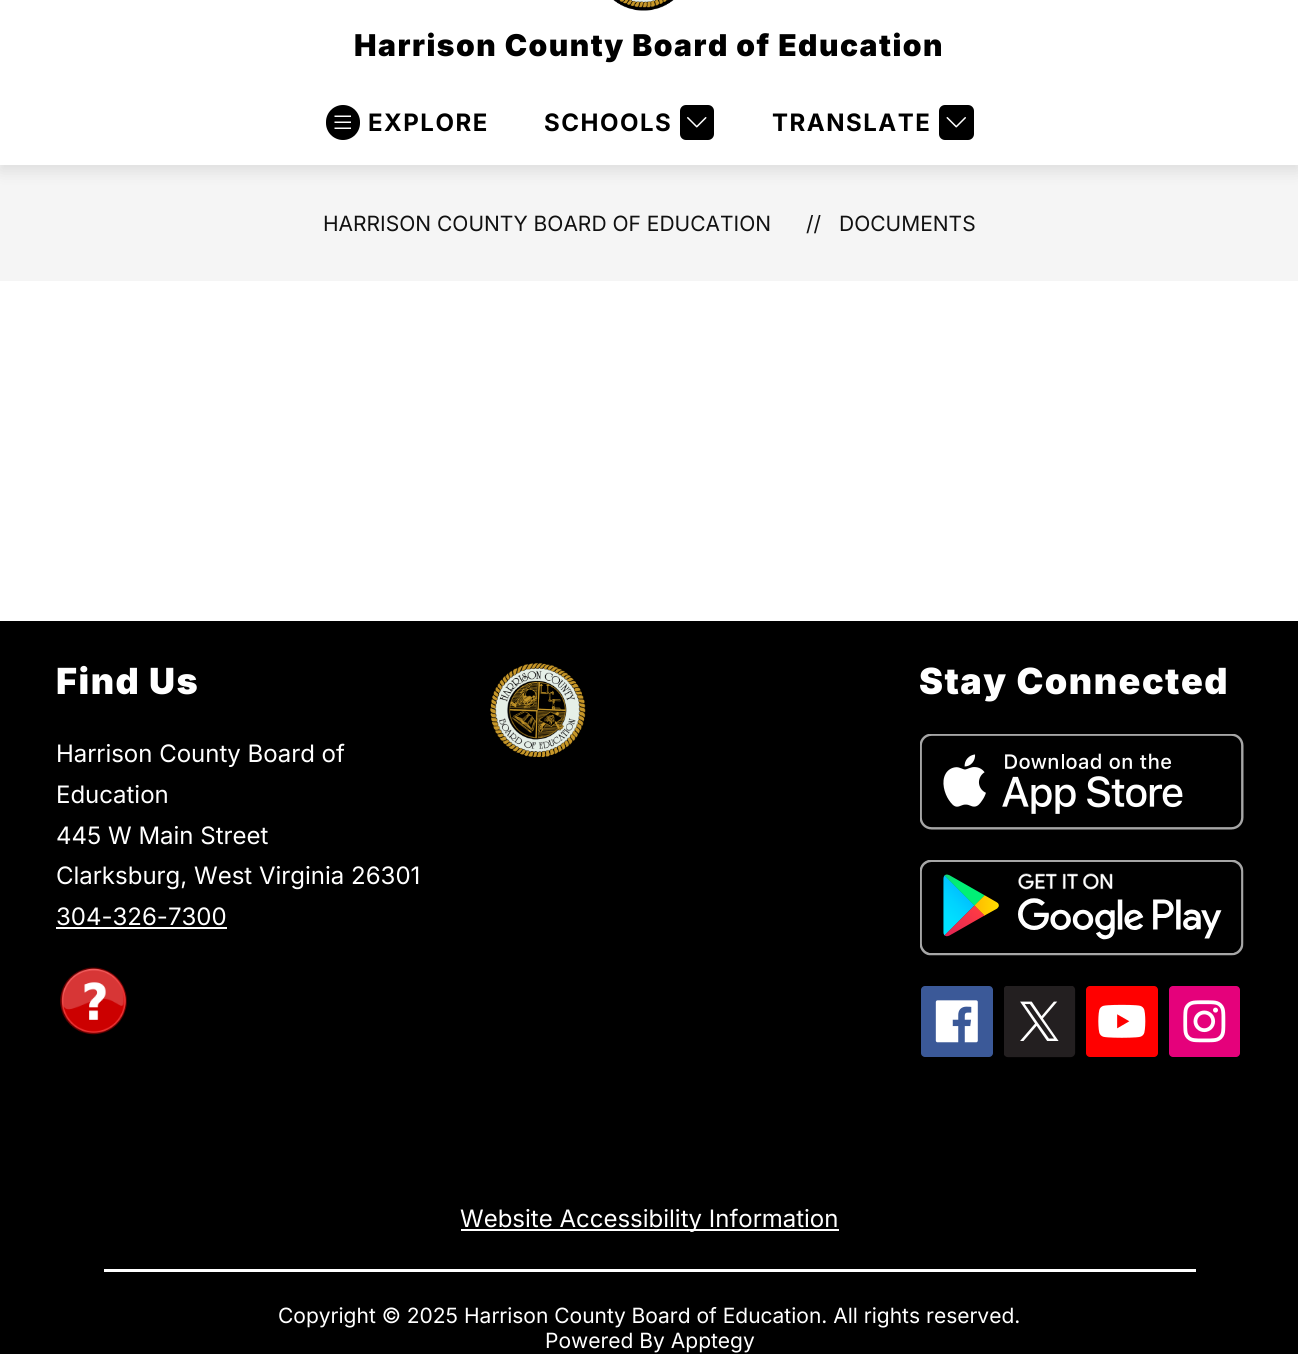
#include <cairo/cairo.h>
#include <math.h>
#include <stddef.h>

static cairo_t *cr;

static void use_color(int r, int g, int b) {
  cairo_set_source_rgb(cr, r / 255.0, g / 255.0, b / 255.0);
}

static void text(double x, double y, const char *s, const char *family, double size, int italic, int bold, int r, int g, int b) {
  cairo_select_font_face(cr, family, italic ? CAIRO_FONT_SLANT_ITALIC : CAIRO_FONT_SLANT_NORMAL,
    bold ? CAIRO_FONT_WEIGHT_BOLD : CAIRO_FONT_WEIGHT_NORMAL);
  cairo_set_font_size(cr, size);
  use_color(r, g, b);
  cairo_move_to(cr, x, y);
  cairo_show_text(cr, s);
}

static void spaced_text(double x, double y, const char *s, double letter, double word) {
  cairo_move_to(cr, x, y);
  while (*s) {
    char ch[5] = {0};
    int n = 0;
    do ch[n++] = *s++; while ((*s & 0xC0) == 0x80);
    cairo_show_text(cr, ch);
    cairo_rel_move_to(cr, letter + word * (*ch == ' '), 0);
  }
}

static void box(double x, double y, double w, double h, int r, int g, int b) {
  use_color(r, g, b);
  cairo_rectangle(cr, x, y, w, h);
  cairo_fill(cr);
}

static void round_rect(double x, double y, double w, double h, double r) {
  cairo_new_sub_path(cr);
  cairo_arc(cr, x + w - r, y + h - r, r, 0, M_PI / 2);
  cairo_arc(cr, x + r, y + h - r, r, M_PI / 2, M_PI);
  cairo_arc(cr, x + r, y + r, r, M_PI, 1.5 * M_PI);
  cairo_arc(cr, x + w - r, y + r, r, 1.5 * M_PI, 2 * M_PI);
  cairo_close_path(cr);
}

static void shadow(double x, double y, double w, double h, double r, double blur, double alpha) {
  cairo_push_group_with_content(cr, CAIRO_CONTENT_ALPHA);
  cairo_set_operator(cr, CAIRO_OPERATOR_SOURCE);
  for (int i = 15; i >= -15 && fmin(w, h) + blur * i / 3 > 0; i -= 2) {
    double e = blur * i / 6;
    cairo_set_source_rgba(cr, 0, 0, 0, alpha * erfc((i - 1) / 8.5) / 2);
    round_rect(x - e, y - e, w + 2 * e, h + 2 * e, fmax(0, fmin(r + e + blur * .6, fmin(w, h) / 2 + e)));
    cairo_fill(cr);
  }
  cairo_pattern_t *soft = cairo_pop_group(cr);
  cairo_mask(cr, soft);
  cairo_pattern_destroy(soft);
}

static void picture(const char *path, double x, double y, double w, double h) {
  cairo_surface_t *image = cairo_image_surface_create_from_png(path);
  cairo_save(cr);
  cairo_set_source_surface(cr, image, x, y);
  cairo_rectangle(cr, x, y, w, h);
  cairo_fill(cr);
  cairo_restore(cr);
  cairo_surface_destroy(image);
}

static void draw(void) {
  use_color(255, 255, 255);
  cairo_paint(cr);
  box(0, 165, 1298, 116, 245, 245, 245);
  use_color(0, 0, 0);
  shadow(0, -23, 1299, 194, 0, 7.5, 0.1);
  box(0, 0, 1298, 165, 255, 255, 255);
  picture("img_01.png", 613, 0, 61, 11);
  picture("img_02.png", 326, 105, 34, 35);
  picture("img_03.png", 680, 105, 34, 35);
  picture("img_04.png", 939, 105, 35, 35);
  box(0, 621, 1298, 733, 0, 0, 0);
  box(56, 927, 171, 2, 255, 255, 255);
  picture("img_05.png", 60, 967, 67, 68);
  picture("img_06.png", 490, 663, 96, 95);
  picture("img_07.png", 920, 734, 324, 96);
  picture("img_08.png", 920, 860, 324, 96);
  picture("img_09.png", 921, 986, 72, 71);
  picture("img_10.png", 1004, 986, 72, 72);
  picture("img_11.png", 1086, 986, 72, 71);
  picture("img_12.png", 1169, 986, 71, 71);
  box(461, 1229, 378, 2, 255, 255, 255);
  box(104, 1269, 1092, 3, 255, 255, 255);
  cairo_select_font_face(cr, "Inter Black", CAIRO_FONT_SLANT_NORMAL, CAIRO_FONT_WEIGHT_NORMAL);
  cairo_set_font_size(cr, 30);
  use_color(0, 0, 0);
  spaced_text(354, 56, "Harrison County Board of Education", 1.5, 0);
  cairo_select_font_face(cr, "Inter", CAIRO_FONT_SLANT_NORMAL, CAIRO_FONT_WEIGHT_BOLD);
  cairo_set_font_size(cr, 24);
  spaced_text(368, 131, "EXPLORE", 1.5, 0);
  spaced_text(544, 131, "SCHOOLS", 1.5, 0);
  spaced_text(772, 131, "TRANSLATE", 1.5, 0);
  text(323, 231, "HARRISON COUNTY BOARD OF EDUCATION", "Inter", 21, 0, 0, 17, 17, 17);
  text(806, 231, "//", "Inter", 21, 0, 0, 17, 17, 17);
  text(839, 231, "DOCUMENTS", "Inter", 21, 0, 0, 17, 17, 17);
  cairo_select_font_face(cr, "Inter Black", CAIRO_FONT_SLANT_NORMAL, CAIRO_FONT_WEIGHT_NORMAL);
  cairo_set_font_size(cr, 36);
  use_color(255, 255, 255);
  spaced_text(56, 694, "Find Us", 1.5, 0);
  text(56, 762, "Harrison County Board of", "Inter", 24, 0, 0, 255, 255, 255);
  text(56, 803, "Education", "Inter", 24, 0, 0, 255, 255, 255);
  text(56, 844, "445 W Main Street", "Inter", 24, 0, 0, 255, 255, 255);
  text(56, 884, "Clarksburg, West Virginia 26301", "Inter", 24, 0, 0, 255, 255, 255);
  text(56, 925, "304-326-7300", "Inter", 24, 0, 0, 255, 255, 255);
  cairo_select_font_face(cr, "Inter Black", CAIRO_FONT_SLANT_NORMAL, CAIRO_FONT_WEIGHT_NORMAL);
  cairo_set_font_size(cr, 36);
  spaced_text(919, 694, "Stay Connected", 1.5, 0);
  text(460, 1227, "Website Accessibility Information", "Inter", 24, 0, 0, 255, 255, 255);
  text(278, 1323, "Copyright © 2025 Harrison County Board of Education. All rights reserved.", "Inter", 21, 0, 0, 255, 255, 255);
  text(545, 1348, "Powered By Apptegy", "Inter", 21, 0, 0, 255, 255, 255);
}

int main(void) {
  cairo_surface_t *surface = cairo_image_surface_create(CAIRO_FORMAT_RGB24, 1298, 1354);
  cr = cairo_create(surface);
  cairo_font_options_t *options = cairo_font_options_create();
  cairo_font_options_set_hint_metrics(options, CAIRO_HINT_METRICS_OFF);
  cairo_font_options_set_hint_style(options, CAIRO_HINT_STYLE_NONE);
  cairo_set_font_options(cr, options);
  cairo_set_miter_limit(cr, 4);
  draw();
  cairo_surface_write_to_png(surface, "out.png");
  cairo_font_options_destroy(options);
  cairo_destroy(cr);
  cairo_surface_destroy(surface);
  return 0;
}
